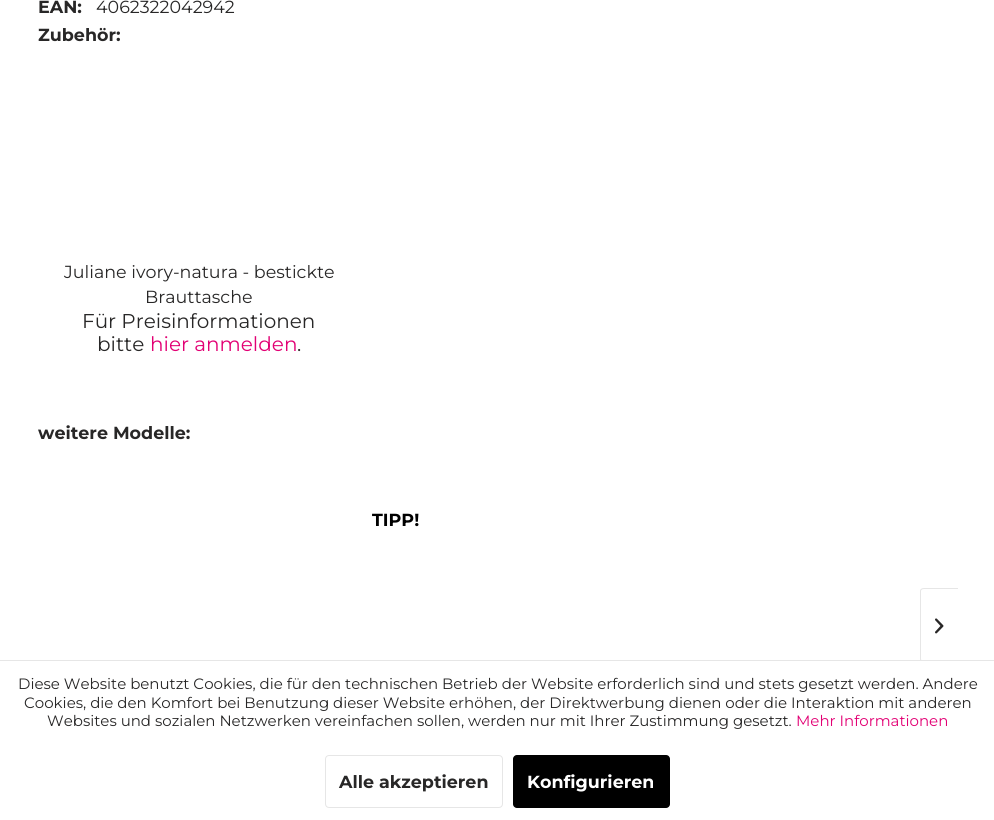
#include <cairo/cairo.h>
#include <math.h>
#include <stddef.h>

static cairo_t *cr;

static void use_color(int r, int g, int b) {
  cairo_set_source_rgb(cr, r / 255.0, g / 255.0, b / 255.0);
}

static void text(double x, double y, const char *s, const char *family, double size, int italic, int bold, int r, int g, int b) {
  cairo_select_font_face(cr, family, italic ? CAIRO_FONT_SLANT_ITALIC : CAIRO_FONT_SLANT_NORMAL,
    bold ? CAIRO_FONT_WEIGHT_BOLD : CAIRO_FONT_WEIGHT_NORMAL);
  cairo_set_font_size(cr, size);
  use_color(r, g, b);
  cairo_move_to(cr, x, y);
  cairo_show_text(cr, s);
}

static void box(double x, double y, double w, double h, int r, int g, int b) {
  use_color(r, g, b);
  cairo_rectangle(cr, x, y, w, h);
  cairo_fill(cr);
}

static void round_rect(double x, double y, double w, double h, double r) {
  cairo_new_sub_path(cr);
  cairo_arc(cr, x + w - r, y + h - r, r, 0, M_PI / 2);
  cairo_arc(cr, x + r, y + h - r, r, M_PI / 2, M_PI);
  cairo_arc(cr, x + r, y + r, r, M_PI, 1.5 * M_PI);
  cairo_arc(cr, x + w - r, y + r, r, 1.5 * M_PI, 2 * M_PI);
  cairo_close_path(cr);
}

static void picture(const char *path, double x, double y, double w, double h) {
  cairo_surface_t *image = cairo_image_surface_create_from_png(path);
  cairo_save(cr);
  cairo_set_source_surface(cr, image, x, y);
  cairo_rectangle(cr, x, y, w, h);
  cairo_fill(cr);
  cairo_restore(cr);
  cairo_surface_destroy(image);
}

static void draw(void) {
  use_color(255, 255, 255);
  cairo_paint(cr);
  use_color(230, 230, 230);
  cairo_set_fill_rule(cr, CAIRO_FILL_RULE_EVEN_ODD);
  cairo_new_path(cr);
  cairo_move_to(cr, 924, 588);
  cairo_line_to(cr, 958, 588);
  cairo_line_to(cr, 958, 662);
  cairo_line_to(cr, 924, 662);
  cairo_curve_to(cr, 922, 662, 920, 661, 920, 659);
  cairo_line_to(cr, 920, 591);
  cairo_curve_to(cr, 920, 589, 922, 588, 924, 588);
  cairo_close_path(cr);
  cairo_move_to(cr, 924, 589);
  cairo_line_to(cr, 958, 589);
  cairo_line_to(cr, 958, 661);
  cairo_line_to(cr, 924, 661);
  cairo_curve_to(cr, 922, 661, 921, 660, 921, 659);
  cairo_line_to(cr, 921, 591);
  cairo_curve_to(cr, 921, 590, 922, 589, 924, 589);
  cairo_close_path(cr);
  cairo_fill(cr);
  picture("img_01.png", 935, 618, 9, 16);
  box(921, 661, 37, 1, 255, 255, 255);
  box(0, 660, 994, 1, 230, 230, 230);
  round_rect(325.5, 755.5, 177, 52, 3.5);
  cairo_set_line_width(cr, 1);
  cairo_stroke(cr);
  use_color(0, 0, 0);
  round_rect(513, 755, 157, 53, 4);
  cairo_fill(cr);
  text(38, 13, "EAN:", "Montserrat Thin", 17.5, 0, 0, 40, 39, 39);
  text(96, 13, "4062322042942", "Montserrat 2 Thin", 17.5, 0, 0, 40, 39, 39);
  text(38, 41, "Zubehör:", "Montserrat Thin", 17.5, 0, 0, 40, 39, 39);
  text(64, 278, "Juliane ivory-natura - bestickte", "Montserrat 2 Thin", 17.5, 0, 0, 40, 39, 39);
  text(145, 303, "Brauttasche", "Montserrat 2 Thin", 17.5, 0, 0, 40, 39, 39);
  text(82, 328, "Für Preisinformationen", "Montserrat 2 Thin", 20, 0, 0, 40, 39, 39);
  text(97, 351, "bitte", "Montserrat 2 Thin", 20, 0, 0, 40, 39, 39);
  text(150, 351, "hier anmelden", "Montserrat 2 Thin", 20, 0, 0, 226, 0, 116);
  text(297, 351, ".", "Montserrat 2 Thin", 20, 0, 0, 40, 39, 39);
  text(38, 439, "weitere Modelle:", "Montserrat Thin", 17.5, 0, 0, 40, 39, 39);
  text(372, 526, "TIPP!", "Montserrat Thin", 17.5, 0, 0, 0, 0, 0);
  text(18, 689, "Diese Website benutzt Cookies, die für den technischen Betrieb der Website erforderlich sind und stets gesetzt werden. Andere", "Montserrat 2 Thin", 15, 0, 0, 40, 39, 39);
  text(24, 708, "Cookies, die den Komfort bei Benutzung dieser Website erhöhen, der Direktwerbung dienen oder die Interaktion mit anderen", "Montserrat 2 Thin", 15, 0, 0, 40, 39, 39);
  text(47, 726, "Websites und sozialen Netzwerken vereinfachen sollen, werden nur mit Ihrer Zustimmung gesetzt.", "Montserrat 2 Thin", 15, 0, 0, 40, 39, 39);
  text(796, 726, "Mehr Informationen", "Montserrat 2 Thin", 15, 0, 0, 226, 0, 116);
  text(339, 788, "Alle akzeptieren", "Montserrat Thin", 17.5, 0, 0, 40, 39, 39);
  text(527, 788, "Konfigurieren", "Montserrat Thin", 17.5, 0, 0, 255, 255, 255);
}

int main(void) {
  cairo_surface_t *surface = cairo_image_surface_create(CAIRO_FORMAT_RGB24, 994, 820);
  cr = cairo_create(surface);
  cairo_font_options_t *options = cairo_font_options_create();
  cairo_font_options_set_hint_metrics(options, CAIRO_HINT_METRICS_OFF);
  cairo_font_options_set_hint_style(options, CAIRO_HINT_STYLE_NONE);
  cairo_set_font_options(cr, options);
  cairo_set_miter_limit(cr, 4);
  draw();
  cairo_surface_write_to_png(surface, "out.png");
  cairo_font_options_destroy(options);
  cairo_destroy(cr);
  cairo_surface_destroy(surface);
  return 0;
}
